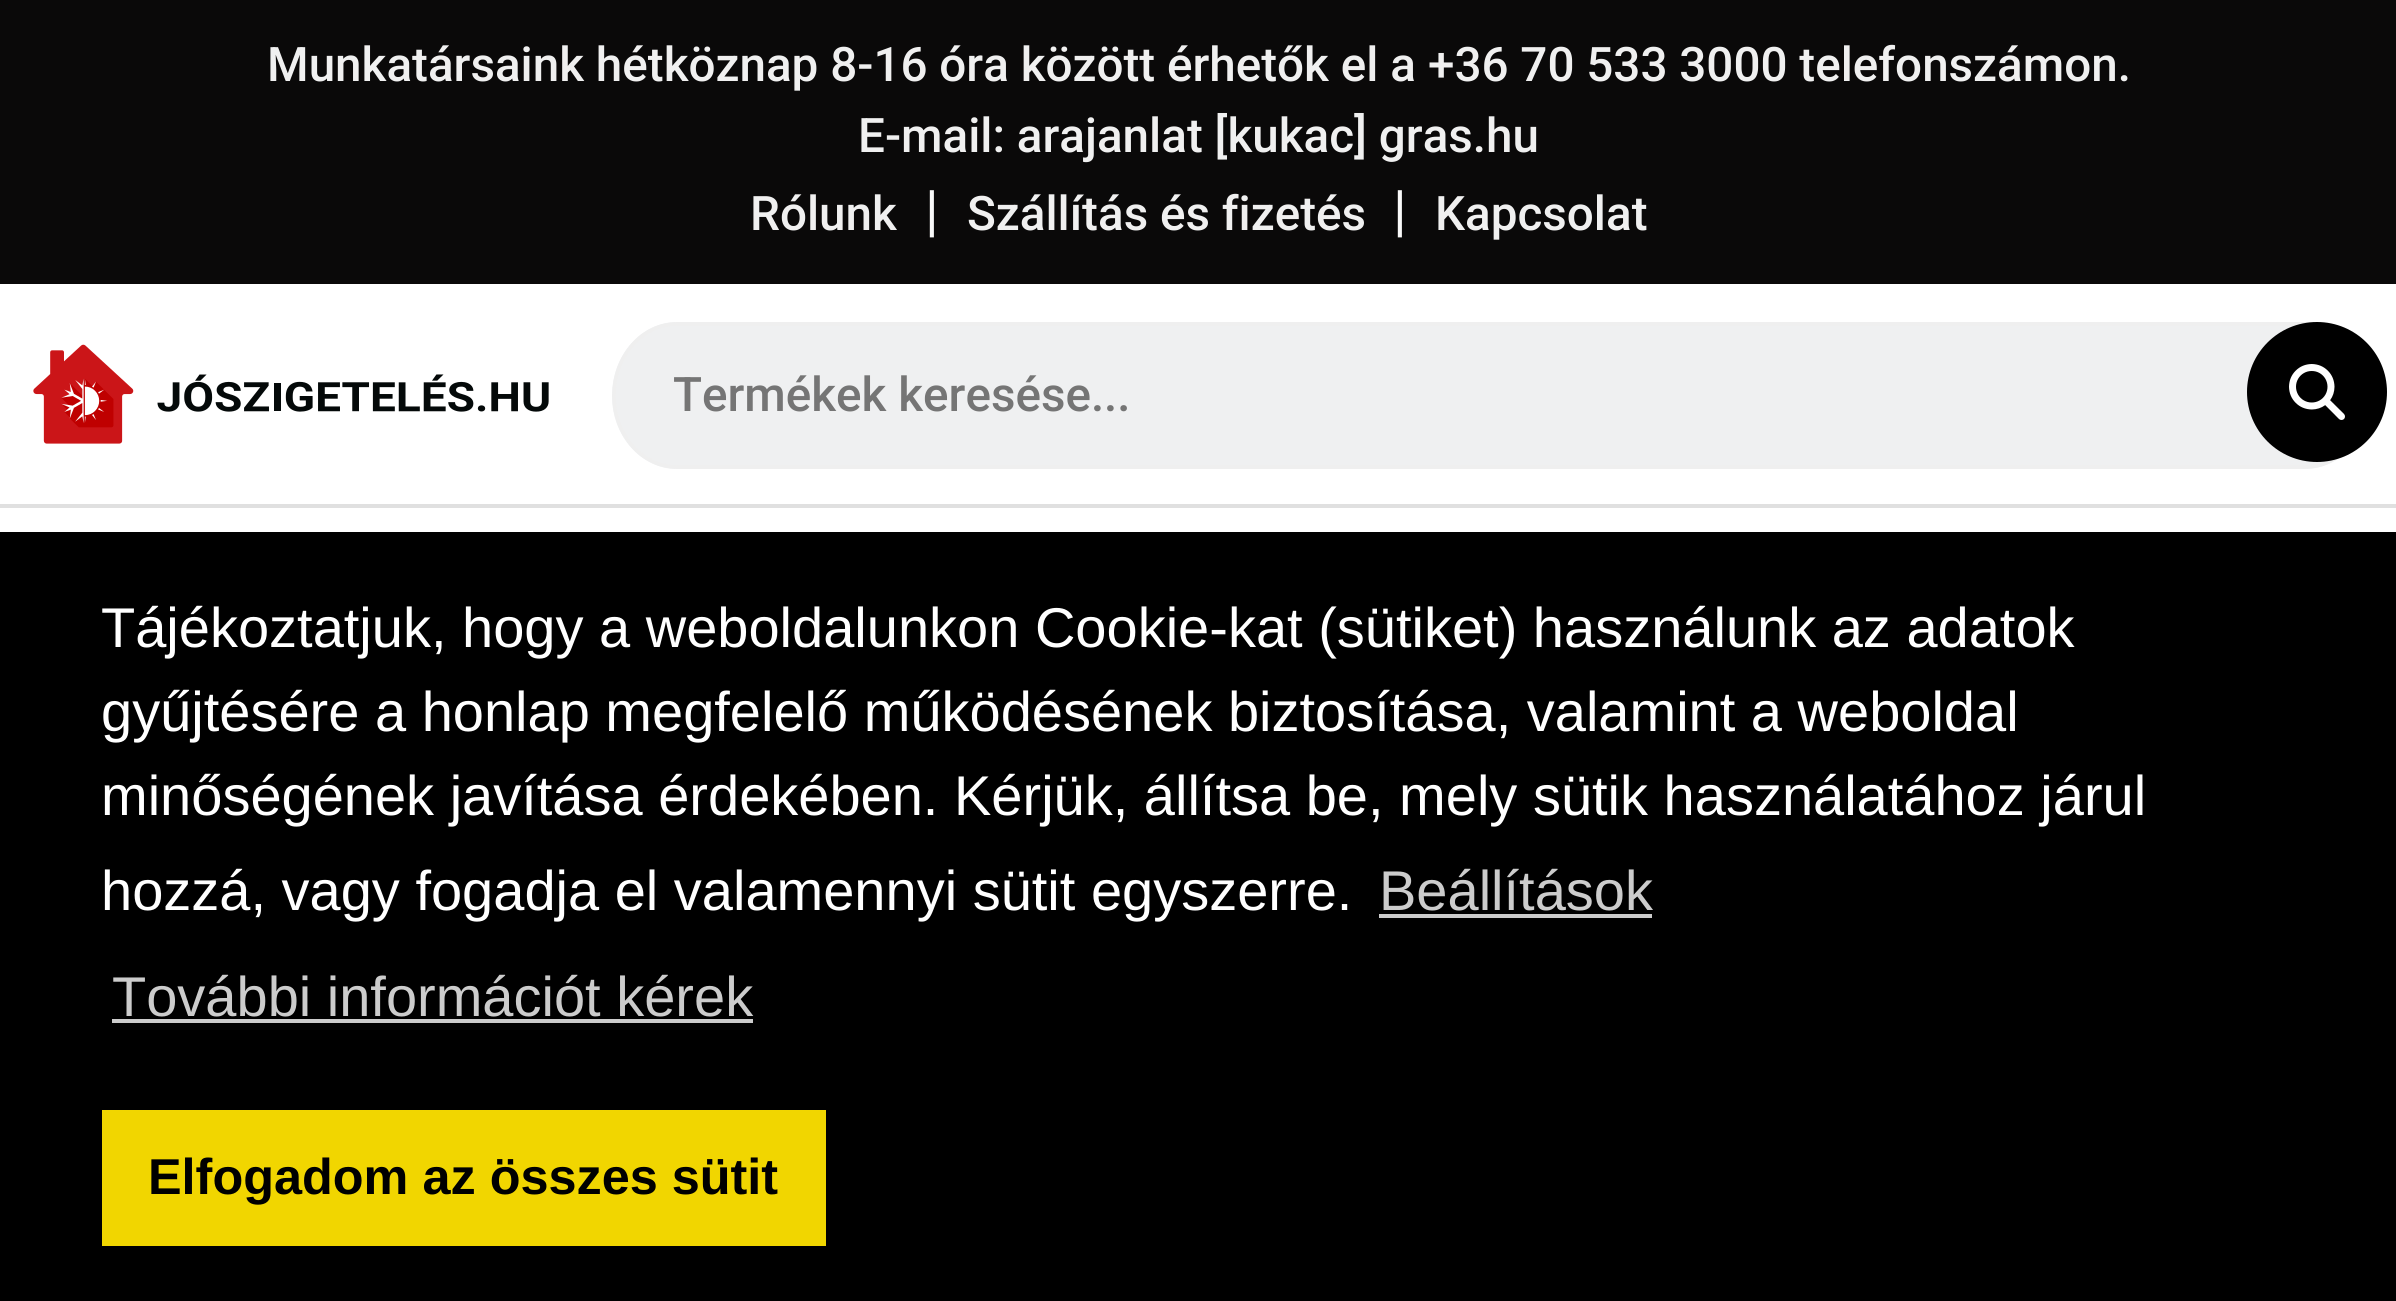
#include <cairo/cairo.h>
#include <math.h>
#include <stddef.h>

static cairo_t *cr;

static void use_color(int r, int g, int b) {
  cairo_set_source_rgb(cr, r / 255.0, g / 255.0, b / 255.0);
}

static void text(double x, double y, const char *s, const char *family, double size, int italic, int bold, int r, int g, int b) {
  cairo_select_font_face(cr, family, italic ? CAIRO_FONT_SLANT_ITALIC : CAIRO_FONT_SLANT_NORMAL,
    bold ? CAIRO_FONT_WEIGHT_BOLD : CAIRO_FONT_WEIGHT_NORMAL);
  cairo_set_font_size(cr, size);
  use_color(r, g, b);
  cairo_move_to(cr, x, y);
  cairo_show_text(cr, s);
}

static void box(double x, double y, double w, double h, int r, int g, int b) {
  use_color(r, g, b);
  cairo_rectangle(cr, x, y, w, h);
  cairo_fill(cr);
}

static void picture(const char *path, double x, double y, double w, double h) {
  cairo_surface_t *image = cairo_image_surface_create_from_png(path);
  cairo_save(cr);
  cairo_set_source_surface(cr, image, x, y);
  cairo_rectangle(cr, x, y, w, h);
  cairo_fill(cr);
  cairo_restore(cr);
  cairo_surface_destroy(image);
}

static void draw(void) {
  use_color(255, 255, 255);
  cairo_paint(cr);
  box(0, 0, 2396, 284, 10, 9, 9);
  picture("img_01.png", 33, 344, 516, 100);
  use_color(239, 240, 241);
  cairo_new_path(cr);
  cairo_move_to(cr, 677, 322);
  cairo_line_to(cr, 2305, 322);
  cairo_curve_to(cr, 2341, 322, 2370, 355, 2370, 396);
  cairo_curve_to(cr, 2370, 436, 2341, 469, 2305, 469);
  cairo_line_to(cr, 677, 469);
  cairo_curve_to(cr, 641, 469, 612, 436, 612, 396);
  cairo_curve_to(cr, 612, 355, 641, 322, 677, 322);
  cairo_close_path(cr);
  cairo_fill(cr);
  cairo_new_path(cr);
  cairo_move_to(cr, 677, 324);
  cairo_line_to(cr, 2305, 324);
  cairo_curve_to(cr, 2339.5, 324, 2368, 356, 2368, 395.5);
  cairo_curve_to(cr, 2368, 435, 2339.5, 467, 2305, 467);
  cairo_line_to(cr, 677, 467);
  cairo_curve_to(cr, 642.5, 467, 614, 435, 614, 395.5);
  cairo_curve_to(cr, 614, 356, 642.5, 324, 677, 324);
  cairo_close_path(cr);
  use_color(239, 239, 239);
  cairo_set_line_width(cr, 3.5);
  cairo_stroke(cr);
  use_color(0, 0, 0);
  cairo_arc(cr, 2317, 392, 70, 0, 2 * M_PI);
  cairo_fill(cr);
  picture("img_02.png", 2289, 364, 56, 56);
  box(0, 504, 2396, 4, 224, 224, 224);
  box(0, 532, 2396, 769, 0, 0, 0);
  box(1379, 914, 273, 4, 204, 204, 204);
  box(112, 1019, 641, 4, 204, 204, 204);
  box(102, 1110, 724, 136, 241, 214, 0);
  text(267, 81, "Munkatársaink hétköznap 8-16 óra között érhetők el a", "Roboto Medium", 47.6, 0, 0, 240, 240, 240);
  text(1428, 81, "+36 70 533 3000 telefonszámon.", "Roboto Medium", 47.6, 0, 0, 240, 240, 240);
  text(858, 152, "E-mail: arajanlat [kukac] gras.hu", "Roboto Medium", 47.6, 0, 0, 240, 240, 240);
  text(750, 230, "Rólunk", "Roboto Medium", 47.6, 0, 0, 240, 240, 240);
  text(925, 230, "|", "Roboto", 56, 0, 0, 249, 249, 249);
  text(967, 230, "Szállítás és fizetés", "Roboto Medium", 47.6, 0, 0, 240, 240, 240);
  text(1393, 230, "|", "Roboto", 56, 0, 0, 249, 249, 249);
  text(1435, 230, "Kapcsolat", "Roboto Medium", 47.6, 0, 0, 240, 240, 240);
  text(673, 411, "Termékek keresése...", "Roboto Medium", 47.6, 0, 0, 117, 117, 117);
  text(101, 647, "Tájékoztatjuk, hogy a weboldalunkon Cookie-kat (sütiket) használunk az adatok", "Liberation Sans", 56, 0, 0, 255, 255, 255);
  text(101, 731, "gyűjtésére a honlap megfelelő működésének biztosítása, valamint a weboldal", "Liberation Sans", 56, 0, 0, 255, 255, 255);
  text(101, 815, "minőségének javítása érdekében. Kérjük, állítsa be, mely sütik használatához járul", "Liberation Sans", 56, 0, 0, 255, 255, 255);
  text(101, 910, "hozzá, vagy fogadja el valamennyi sütit egyszerre.", "Liberation Sans", 56, 0, 0, 255, 255, 255);
  text(1379, 910, "Beállítások", "Liberation Sans", 56, 0, 0, 204, 204, 204);
  text(112, 1016, "További információt kérek", "Liberation Sans", 56, 0, 0, 204, 204, 204);
  text(148, 1194, "Elfogadom az összes sütit", "Liberation Sans", 50.4, 0, 1, 0, 0, 0);
}

int main(void) {
  cairo_surface_t *surface = cairo_image_surface_create(CAIRO_FORMAT_RGB24, 2396, 1301);
  cr = cairo_create(surface);
  cairo_font_options_t *options = cairo_font_options_create();
  cairo_font_options_set_hint_metrics(options, CAIRO_HINT_METRICS_OFF);
  cairo_font_options_set_hint_style(options, CAIRO_HINT_STYLE_NONE);
  cairo_set_font_options(cr, options);
  cairo_set_miter_limit(cr, 4);
  draw();
  cairo_surface_write_to_png(surface, "out.png");
  cairo_font_options_destroy(options);
  cairo_destroy(cr);
  cairo_surface_destroy(surface);
  return 0;
}
